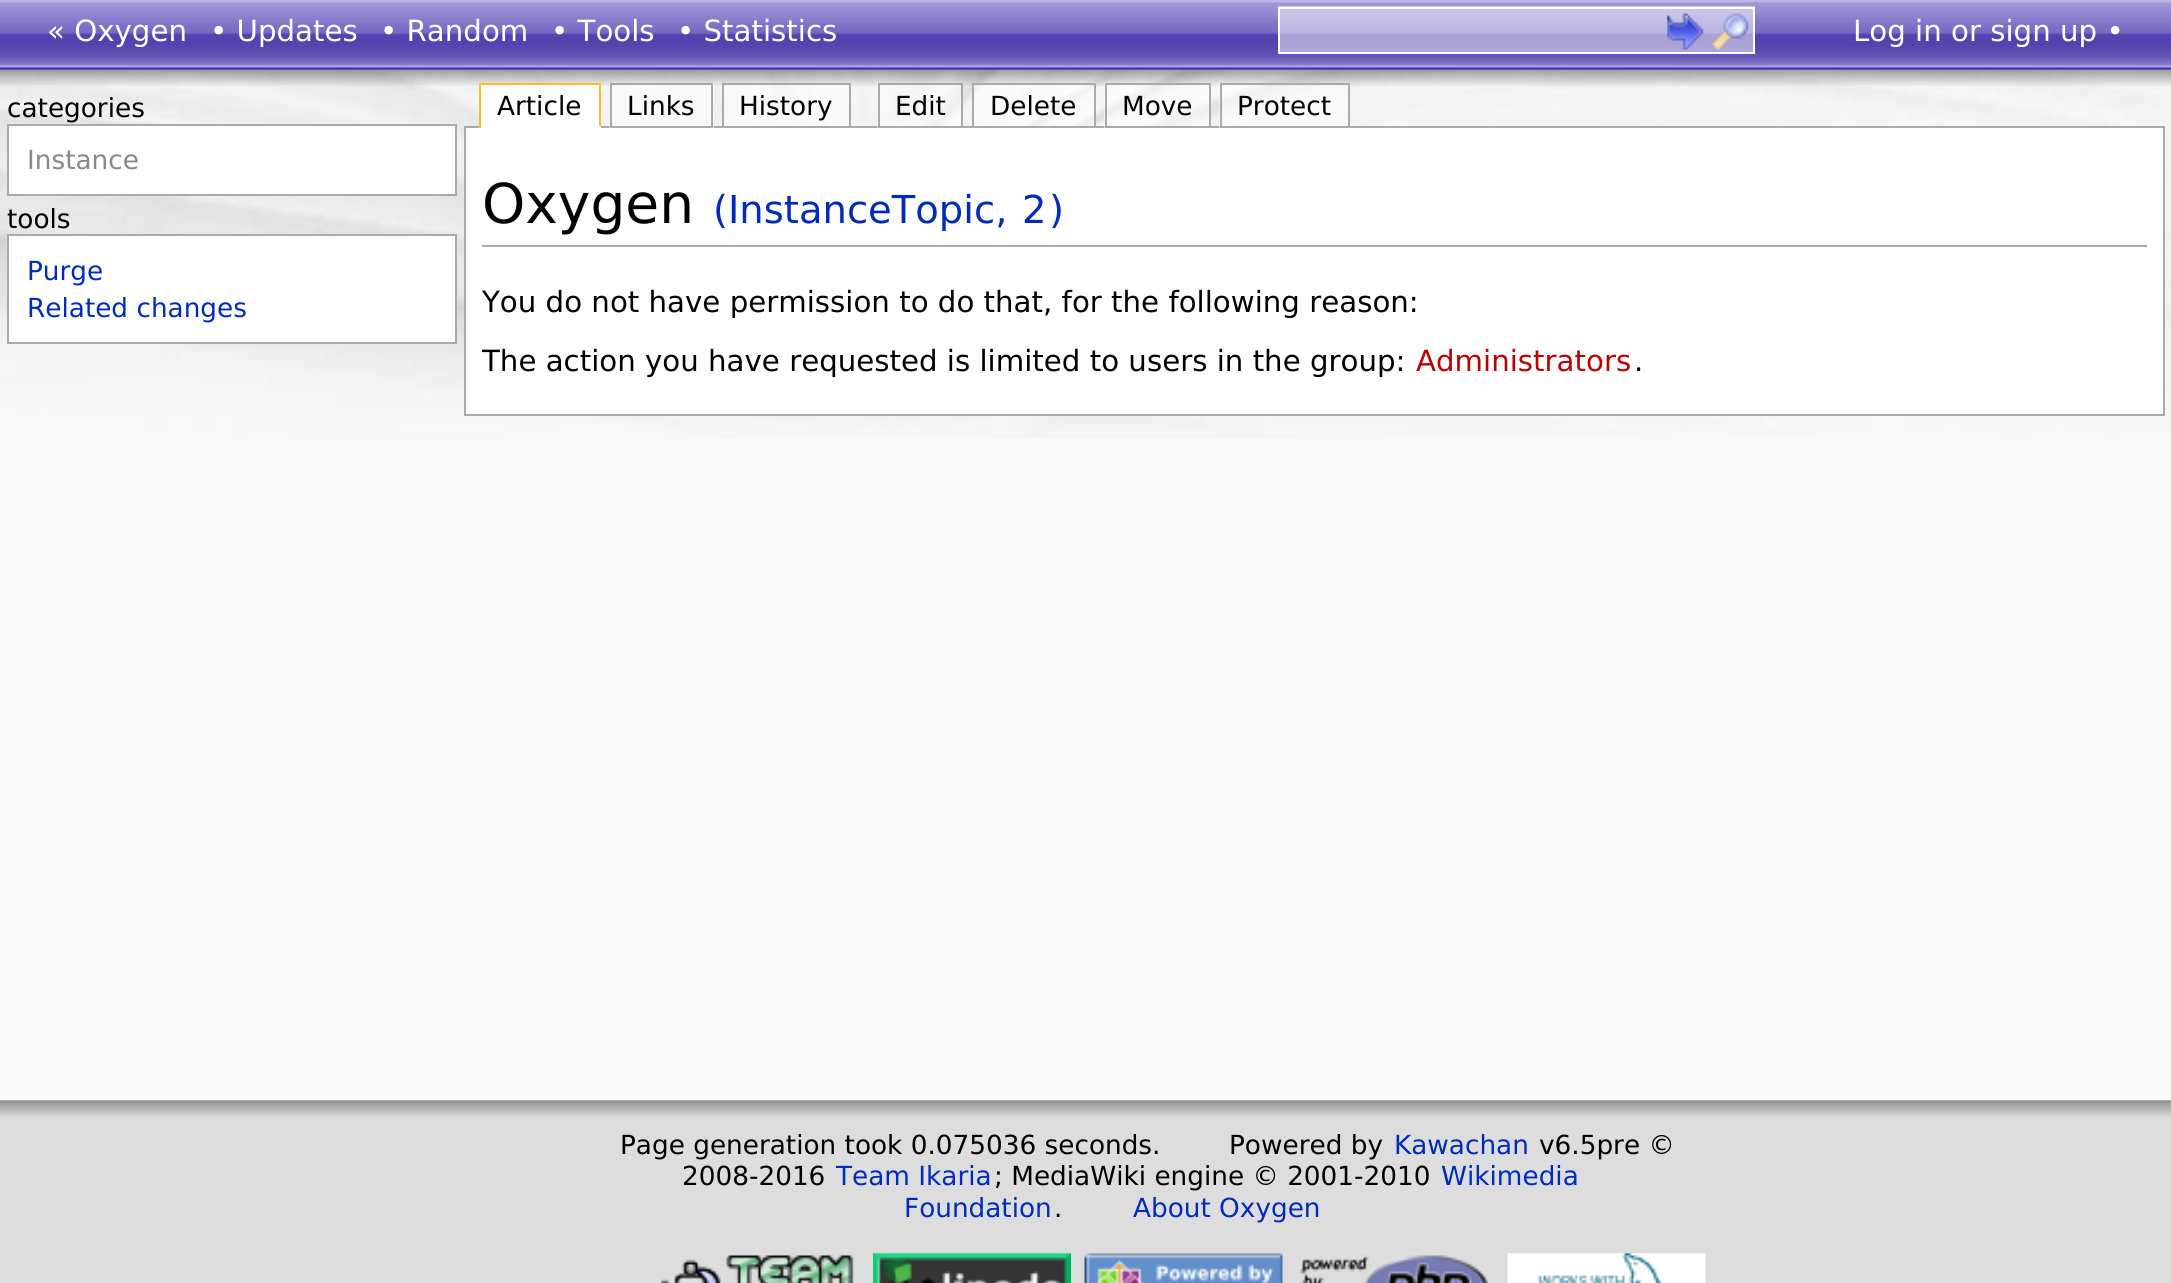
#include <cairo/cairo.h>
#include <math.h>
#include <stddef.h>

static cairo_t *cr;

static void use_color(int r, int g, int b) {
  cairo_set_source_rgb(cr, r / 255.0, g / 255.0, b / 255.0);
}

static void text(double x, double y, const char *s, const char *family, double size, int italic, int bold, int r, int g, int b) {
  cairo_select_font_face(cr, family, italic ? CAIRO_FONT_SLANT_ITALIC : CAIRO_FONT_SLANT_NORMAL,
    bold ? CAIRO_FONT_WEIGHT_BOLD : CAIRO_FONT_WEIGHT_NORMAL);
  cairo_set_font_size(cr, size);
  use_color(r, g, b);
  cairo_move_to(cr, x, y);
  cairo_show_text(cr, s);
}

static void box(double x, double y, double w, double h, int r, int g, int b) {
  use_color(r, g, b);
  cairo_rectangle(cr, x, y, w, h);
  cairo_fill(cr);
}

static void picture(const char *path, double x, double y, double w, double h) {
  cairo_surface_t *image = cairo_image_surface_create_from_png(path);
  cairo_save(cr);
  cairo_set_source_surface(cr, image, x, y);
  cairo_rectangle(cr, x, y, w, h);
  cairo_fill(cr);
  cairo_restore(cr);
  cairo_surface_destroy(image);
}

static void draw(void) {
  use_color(249, 249, 249);
  cairo_paint(cr);
  picture("img_01.png", 0, 69, 2171, 369);
  picture("img_05.png", 0, 69, 2171, 17);
  picture("img_02.png", 0, 0, 2171, 70);
  cairo_set_source_rgba(cr, 1, 1, 1, 0.5);
  cairo_rectangle(cr, 1278, 6, 477, 46);
  cairo_fill(cr);
  cairo_rectangle(cr, 1279, 8, 475, 45);
  use_color(255, 255, 255);
  cairo_stroke(cr);
  picture("img_03.png", 1667, 13, 37, 37);
  picture("img_04.png", 1712, 13, 37, 37);
  cairo_rectangle(cr, 8, 125, 448, 70);
  cairo_fill_preserve(cr);
  use_color(170, 170, 170);
  cairo_stroke(cr);
  use_color(255, 255, 255);
  cairo_rectangle(cr, 8, 235, 448, 108);
  cairo_fill_preserve(cr);
  use_color(170, 170, 170);
  cairo_stroke(cr);
  box(481, 85, 118, 41, 255, 255, 255);
  box(479, 83, 122, 2, 250, 189, 35);
  use_color(255, 255, 255);
  cairo_rectangle(cr, 465, 127, 1699, 288);
  cairo_fill_preserve(cr);
  use_color(170, 170, 170);
  cairo_stroke(cr);
  box(599, 83, 2, 45, 250, 189, 35);
  box(479, 126, 122, 2, 255, 255, 255);
  box(479, 83, 2, 45, 250, 189, 35);
  cairo_set_source_rgba(cr, 1, 1, 1, 0.5);
  cairo_rectangle(cr, 609, 83, 105, 45);
  cairo_fill(cr);
  cairo_rectangle(cr, 611, 84, 101, 43);
  use_color(170, 170, 170);
  cairo_stroke(cr);
  cairo_set_source_rgba(cr, 1, 1, 1, 0.5);
  cairo_rectangle(cr, 723, 84, 127, 43);
  cairo_fill_preserve(cr);
  use_color(170, 170, 170);
  cairo_stroke(cr);
  cairo_set_source_rgba(cr, 1, 1, 1, 0.5);
  cairo_rectangle(cr, 877, 83, 84, 45);
  cairo_fill(cr);
  cairo_rectangle(cr, 879, 84, 83, 43);
  use_color(170, 170, 170);
  cairo_stroke(cr);
  cairo_set_source_rgba(cr, 1, 1, 1, 0.5);
  cairo_rectangle(cr, 973, 84, 122, 43);
  cairo_fill_preserve(cr);
  use_color(170, 170, 170);
  cairo_stroke(cr);
  cairo_set_source_rgba(cr, 1, 1, 1, 0.5);
  cairo_rectangle(cr, 1104, 83, 105, 45);
  cairo_fill(cr);
  cairo_rectangle(cr, 1106, 84, 104, 43);
  use_color(170, 170, 170);
  cairo_stroke(cr);
  cairo_set_source_rgba(cr, 1, 1, 1, 0.5);
  cairo_rectangle(cr, 1219, 83, 129, 45);
  cairo_fill(cr);
  cairo_rectangle(cr, 1221, 84, 128, 43);
  use_color(170, 170, 170);
  cairo_stroke(cr);
  box(482, 245, 1665, 2, 170, 170, 170);
  box(0, 1100, 2171, 183, 221, 221, 221);
  picture("img_06.png", 0, 1100, 2171, 17);
  picture("img_07.png", 661, 1255, 193, 28);
  picture("img_08.png", 873, 1253, 198, 30);
  picture("img_09.png", 1084, 1253, 199, 30);
  picture("img_10.png", 1300, 1255, 188, 28);
  picture("img_11.png", 1507, 1253, 199, 30);
  text(47, 41, "« Oxygen", "DejaVu Sans", 29.25, 0, 0, 255, 255, 255);
  text(210, 41, "• Updates", "DejaVu Sans", 29.25, 0, 0, 255, 255, 255);
  text(380, 41, "• Random", "DejaVu Sans", 29.25, 0, 0, 255, 255, 255);
  text(551, 41, "• Tools", "DejaVu Sans", 29.25, 0, 0, 255, 255, 255);
  text(677, 41, "• Statistics", "DejaVu Sans", 29.25, 0, 0, 255, 255, 255);
  text(1853, 41, "Log in or sign up •", "DejaVu Sans", 29.25, 0, 0, 255, 255, 255);
  text(7, 117, "categories", "DejaVu Sans", 26.3, 0, 0, 0, 0, 0);
  text(27, 169, "Instance", "DejaVu Sans", 26.3, 0, 0, 136, 136, 136);
  text(7, 228, "tools", "DejaVu Sans", 26.3, 0, 0, 0, 0, 0);
  text(27, 280, "Purge", "DejaVu Sans", 26.3, 0, 0, 0, 43, 184);
  text(27, 317, "Related changes", "DejaVu Sans", 26.3, 0, 0, 0, 43, 184);
  text(497, 115, "Article", "DejaVu Sans", 26.3, 0, 0, 0, 0, 0);
  text(627, 115, "Links", "DejaVu Sans", 26.3, 0, 0, 0, 0, 0);
  text(739, 115, "History", "DejaVu Sans", 26.3, 0, 0, 0, 0, 0);
  text(895, 115, "Edit", "DejaVu Sans", 26.3, 0, 0, 0, 0, 0);
  text(990, 115, "Delete", "DejaVu Sans", 26.3, 0, 0, 0, 0, 0);
  text(1122, 115, "Move", "DejaVu Sans", 26.3, 0, 0, 0, 0, 0);
  text(1237, 115, "Protect", "DejaVu Sans", 26.3, 0, 0, 0, 0, 0);
  text(482, 223, "Oxygen", "DejaVu Sans", 55, 0, 0, 0, 0, 0);
  text(713, 223, "(InstanceTopic,", "DejaVu Sans", 38.5, 0, 0, 0, 43, 184);
  text(1022, 223, "2", "DejaVu Sans", 38.5, 0, 0, 0, 43, 184);
  text(1049, 223, ")", "DejaVu Sans", 38.5, 0, 0, 0, 43, 184);
  text(482, 312, "You do not have permission to do that, for the following reason:", "DejaVu Sans", 29.25, 0, 0, 0, 0, 0);
  text(482, 371, "The action you have requested is limited to users in the group:", "DejaVu Sans", 29.25, 0, 0, 0, 0, 0);
  text(1416, 371, "Administrators", "DejaVu Sans", 29.25, 0, 0, 186, 0, 0);
  text(1634, 371, ".", "DejaVu Sans", 29.25, 0, 0, 0, 0, 0);
  text(620, 1154, "Page generation took 0.075036 seconds.", "DejaVu Sans", 26.3, 0, 0, 0, 0, 0);
  text(1229, 1154, "Powered by", "DejaVu Sans", 26.3, 0, 0, 0, 0, 0);
  text(1394, 1154, "Kawachan", "DejaVu Sans", 26.3, 0, 0, 0, 43, 184);
  text(1539, 1154, "v6.5pre ©", "DejaVu Sans", 26.3, 0, 0, 0, 0, 0);
  text(682, 1185, "2008-2016", "DejaVu Sans", 26.3, 0, 0, 0, 0, 0);
  text(836, 1185, "Team Ikaria", "DejaVu Sans", 26.3, 0, 0, 0, 43, 184);
  text(994, 1185, "; MediaWiki engine © 2001-2010", "DejaVu Sans", 26.3, 0, 0, 0, 0, 0);
  text(1441, 1185, "Wikimedia", "DejaVu Sans", 26.3, 0, 0, 0, 43, 184);
  text(904, 1217, "Foundation", "DejaVu Sans", 26.3, 0, 0, 0, 43, 184);
  text(1054, 1217, ".", "DejaVu Sans", 26.3, 0, 0, 0, 0, 0);
  text(1133, 1217, "About Oxygen", "DejaVu Sans", 26.3, 0, 0, 0, 43, 184);
}

int main(void) {
  cairo_surface_t *surface = cairo_image_surface_create(CAIRO_FORMAT_RGB24, 2171, 1283);
  cr = cairo_create(surface);
  cairo_font_options_t *options = cairo_font_options_create();
  cairo_font_options_set_hint_metrics(options, CAIRO_HINT_METRICS_OFF);
  cairo_font_options_set_hint_style(options, CAIRO_HINT_STYLE_NONE);
  cairo_set_font_options(cr, options);
  cairo_set_miter_limit(cr, 4);
  draw();
  cairo_surface_write_to_png(surface, "out.png");
  cairo_font_options_destroy(options);
  cairo_destroy(cr);
  cairo_surface_destroy(surface);
  return 0;
}
